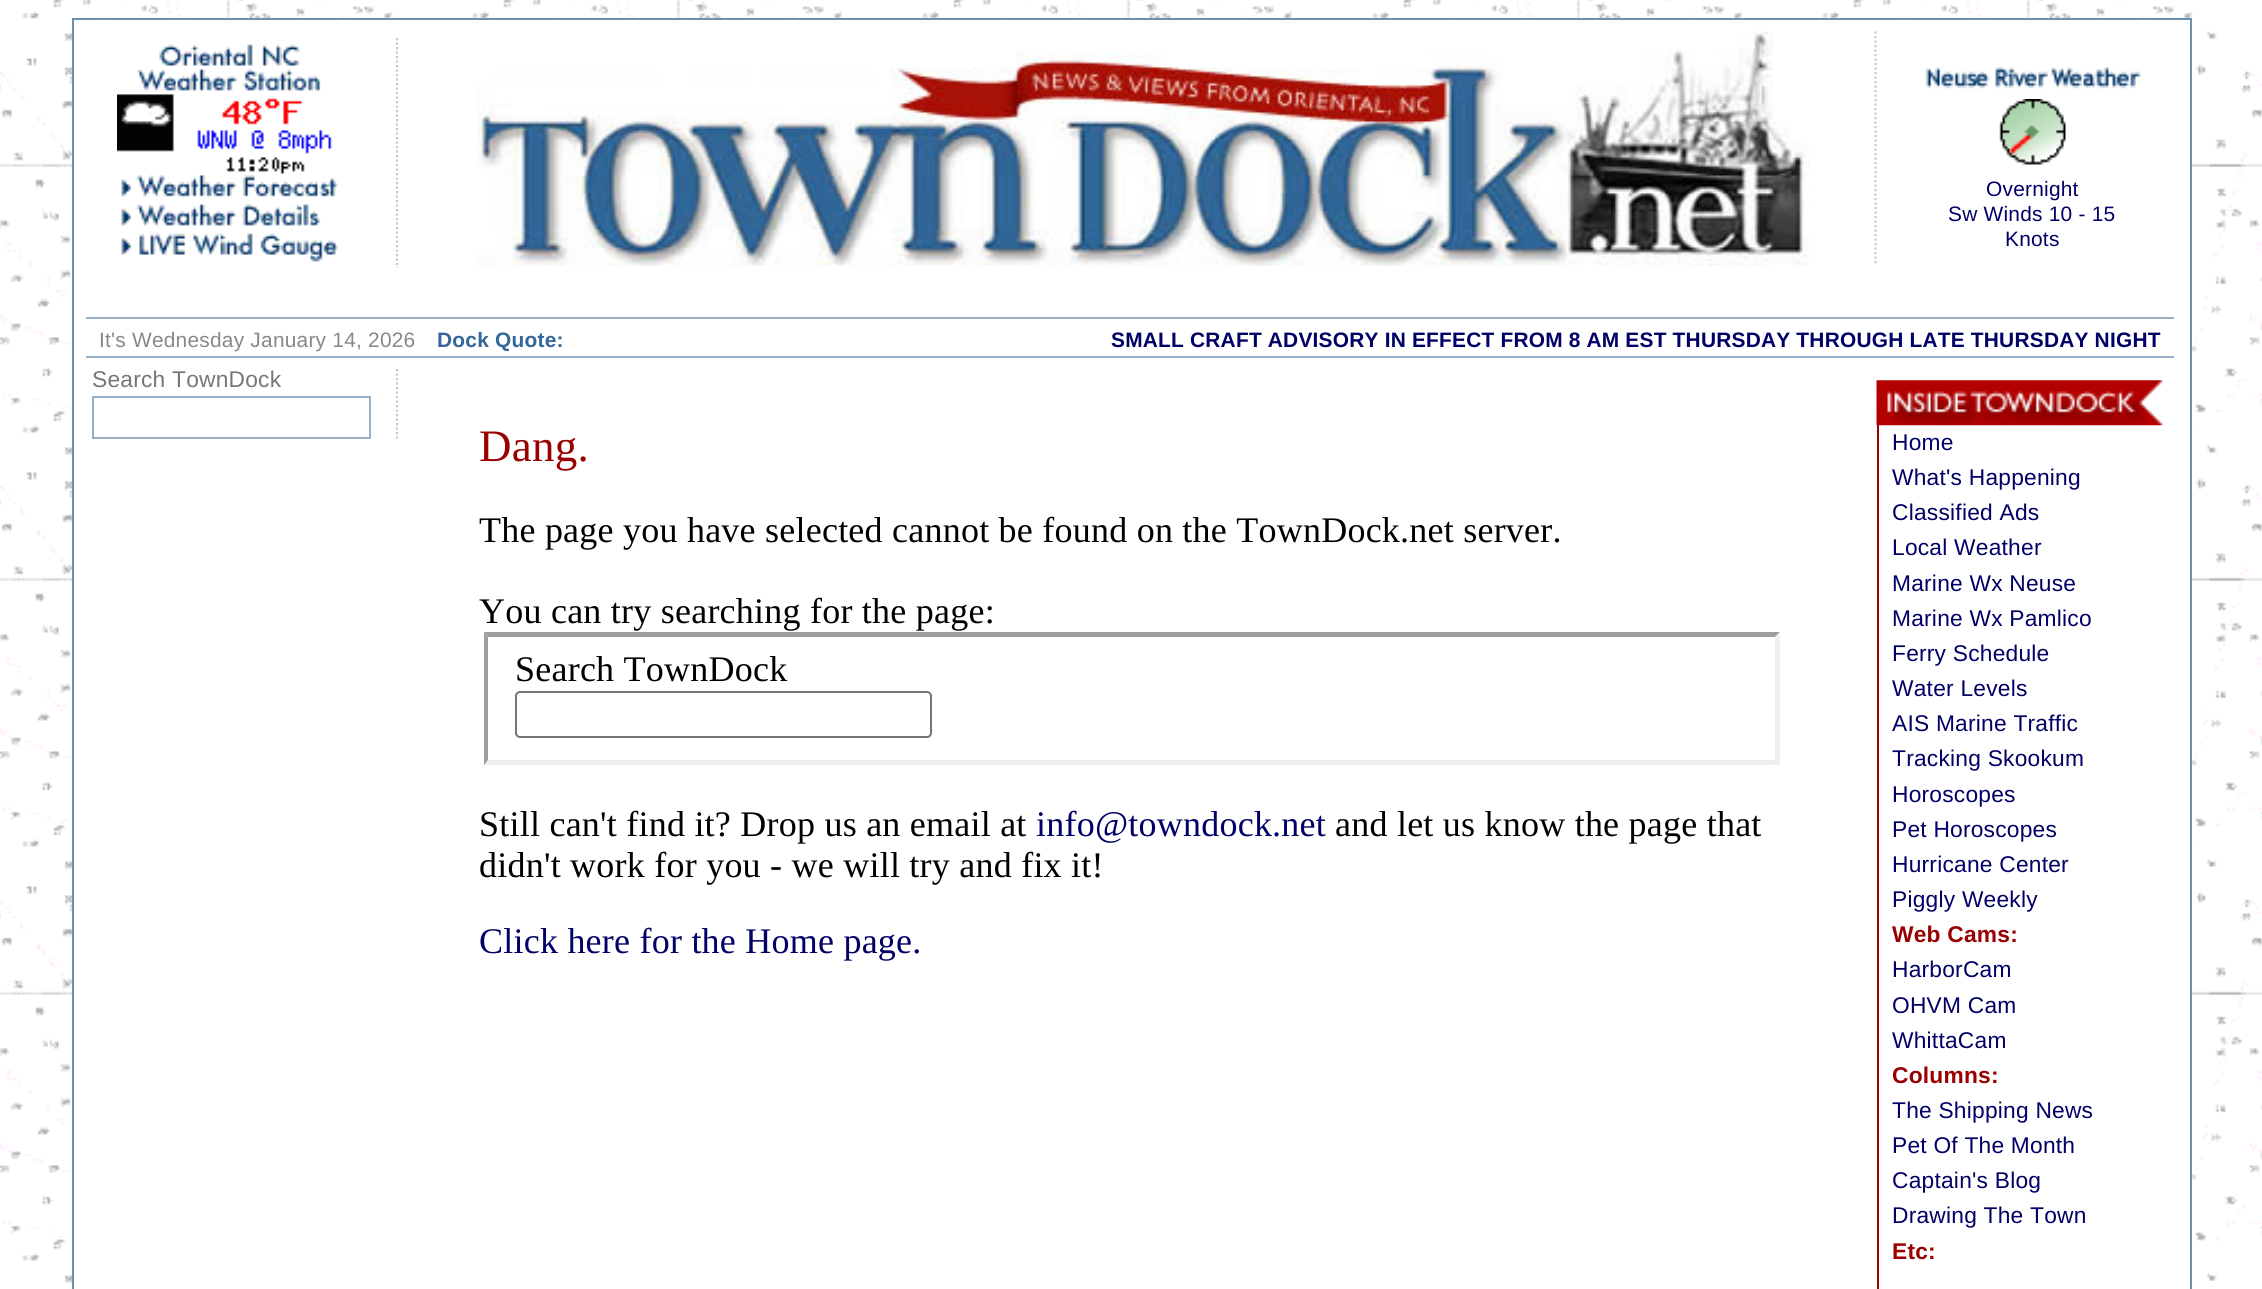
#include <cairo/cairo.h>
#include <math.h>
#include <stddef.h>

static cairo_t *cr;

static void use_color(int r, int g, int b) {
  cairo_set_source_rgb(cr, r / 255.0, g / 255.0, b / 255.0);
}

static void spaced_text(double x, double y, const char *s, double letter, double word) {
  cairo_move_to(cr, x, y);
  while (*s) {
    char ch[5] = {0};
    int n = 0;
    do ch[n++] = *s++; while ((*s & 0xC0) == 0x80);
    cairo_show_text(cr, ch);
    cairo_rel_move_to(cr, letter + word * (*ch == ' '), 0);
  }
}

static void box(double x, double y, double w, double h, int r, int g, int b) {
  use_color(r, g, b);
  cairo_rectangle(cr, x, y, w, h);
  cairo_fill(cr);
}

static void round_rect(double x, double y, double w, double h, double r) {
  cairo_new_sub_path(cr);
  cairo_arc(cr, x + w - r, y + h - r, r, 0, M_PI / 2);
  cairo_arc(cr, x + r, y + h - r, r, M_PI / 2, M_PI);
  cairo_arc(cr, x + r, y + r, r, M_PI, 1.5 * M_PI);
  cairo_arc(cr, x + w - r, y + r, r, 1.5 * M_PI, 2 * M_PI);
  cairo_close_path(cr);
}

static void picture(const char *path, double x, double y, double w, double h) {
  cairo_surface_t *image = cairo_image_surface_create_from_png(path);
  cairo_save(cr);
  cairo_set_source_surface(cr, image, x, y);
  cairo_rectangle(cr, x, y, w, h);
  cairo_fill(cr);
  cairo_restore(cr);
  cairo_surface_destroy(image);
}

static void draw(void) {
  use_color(255, 255, 255);
  cairo_paint(cr);
  picture("img_01.png", 0, 0, 2262, 1289);
  use_color(255, 255, 255);
  cairo_rectangle(cr, 73, 19, 2118, 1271);
  cairo_fill_preserve(cr);
  use_color(110, 145, 175);
  cairo_stroke(cr);
  cairo_new_path(cr);
  cairo_move_to(cr, 397, 38);
  cairo_line_to(cr, 397, 268);
  use_color(204, 204, 204);
  cairo_set_line_width(cr, 2.2);
  cairo_set_dash(cr, (double[]){2.25, 2.25}, 2, 0);
  cairo_stroke(cr);
  picture("img_02.png", 117, 44, 221, 218);
  cairo_new_path(cr);
  cairo_move_to(cr, 1875.5, 31.5);
  cairo_line_to(cr, 1875.5, 265.5);
  cairo_stroke(cr);
  picture("img_03.png", 477, 31, 1332, 235);
  picture("img_04.png", 1925, 67, 216, 22);
  picture("img_05.png", 1999, 99, 67, 66);
  box(86, 317, 2088, 2, 150, 175, 197);
  box(86, 356, 2088, 2, 150, 175, 197);
  cairo_new_path(cr);
  cairo_move_to(cr, 397, 369);
  cairo_line_to(cr, 397, 439);
  use_color(204, 204, 204);
  cairo_stroke(cr);
  cairo_rectangle(cr, 93, 397, 277, 41);
  use_color(150, 175, 197);
  cairo_set_line_width(cr, 2);
  cairo_set_dash(cr, NULL, 0, 0);
  cairo_stroke(cr);
  use_color(159, 159, 159);
  cairo_new_path(cr);
  cairo_move_to(cr, 484, 632);
  cairo_line_to(cr, 1780, 632);
  cairo_line_to(cr, 1775, 637);
  cairo_line_to(cr, 488, 637);
  cairo_close_path(cr);
  cairo_fill(cr);
  use_color(239, 239, 239);
  cairo_new_path(cr);
  cairo_move_to(cr, 1780, 632);
  cairo_line_to(cr, 1780, 765);
  cairo_line_to(cr, 1775, 760);
  cairo_line_to(cr, 1775, 637);
  cairo_close_path(cr);
  cairo_fill(cr);
  cairo_new_path(cr);
  cairo_move_to(cr, 1780, 765);
  cairo_line_to(cr, 484, 765);
  cairo_line_to(cr, 488, 760);
  cairo_line_to(cr, 1775, 760);
  cairo_close_path(cr);
  cairo_fill(cr);
  use_color(159, 159, 159);
  cairo_new_path(cr);
  cairo_move_to(cr, 484, 765);
  cairo_line_to(cr, 484, 632);
  cairo_line_to(cr, 488, 637);
  cairo_line_to(cr, 488, 760);
  cairo_close_path(cr);
  cairo_fill(cr);
  round_rect(516, 692, 415, 45, 4);
  use_color(118, 118, 118);
  cairo_stroke(cr);
  picture("img_06.png", 1876, 380, 287, 46);
  box(1877, 425, 2, 864, 153, 0, 0);
  cairo_select_font_face(cr, "Liberation Sans", CAIRO_FONT_SLANT_NORMAL, CAIRO_FONT_WEIGHT_NORMAL);
  cairo_set_font_size(cr, 20.88);
  use_color(0, 0, 102);
  spaced_text(1986, 196, "Overnight", 0.23, 0);
  spaced_text(1948, 221, "Sw Winds 10 - 15", 0.23, 0);
  spaced_text(2005, 246, "Knots", 0.23, 0);
  use_color(136, 136, 136);
  spaced_text(99, 347, "It's Wednesday January 14, 2026", 0.23, 0);
  cairo_select_font_face(cr, "Liberation Sans", CAIRO_FONT_SLANT_NORMAL, CAIRO_FONT_WEIGHT_BOLD);
  use_color(51, 102, 153);
  spaced_text(437, 347, "Dock Quote:", 0.23, 0);
  use_color(0, 0, 102);
  spaced_text(1111, 347, "SMALL CRAFT ADVISORY IN EFFECT FROM 8 AM EST THURSDAY THROUGH LATE THURSDAY NIGHT", 0.23, -0.1);
  cairo_select_font_face(cr, "Liberation Sans", CAIRO_FONT_SLANT_NORMAL, CAIRO_FONT_WEIGHT_NORMAL);
  cairo_set_font_size(cr, 22.75);
  use_color(119, 119, 119);
  spaced_text(92, 387, "Search TownDock", 0.23, 0);
  cairo_select_font_face(cr, "Liberation Serif", CAIRO_FONT_SLANT_NORMAL, CAIRO_FONT_WEIGHT_NORMAL);
  cairo_set_font_size(cr, 45);
  use_color(153, 0, 0);
  spaced_text(479, 461, "Dang.", 0.23, 0);
  cairo_set_font_size(cr, 36);
  use_color(0, 0, 0);
  spaced_text(479, 542, "The page you have selected cannot be found on the TownDock.net server.", 0.23, 0);
  spaced_text(479, 623, "You can try searching for the page:", 0.23, 0);
  spaced_text(515, 681, "Search TownDock", 0.23, 0);
  spaced_text(479, 836, "Still can't find it? Drop us an email at", 0.23, 0);
  use_color(0, 0, 102);
  spaced_text(1036, 836, "info@towndock.net", 0.23, 0);
  use_color(0, 0, 0);
  spaced_text(1335, 836, "and let us know the page that", 0.23, 0);
  spaced_text(479, 877, "didn't work for you - we will try and fix it!", 0.23, 0);
  use_color(0, 0, 102);
  spaced_text(479, 953, "Click here for the Home page.", 0.23, 0);
  cairo_select_font_face(cr, "Liberation Sans", CAIRO_FONT_SLANT_NORMAL, CAIRO_FONT_WEIGHT_NORMAL);
  cairo_set_font_size(cr, 22.75);
  spaced_text(1892, 450, "Home", 0.23, 0);
  spaced_text(1892, 485, "What's Happening", 0.23, 0);
  spaced_text(1892, 520, "Classified Ads", 0.23, 0);
  spaced_text(1892, 555, "Local Weather", 0.23, 0);
  spaced_text(1892, 591, "Marine Wx Neuse", 0.23, 0);
  spaced_text(1892, 626, "Marine Wx Pamlico", 0.23, 0);
  spaced_text(1892, 661, "Ferry Schedule", 0.23, 0);
  spaced_text(1892, 696, "Water Levels", 0.23, 0);
  spaced_text(1892, 731, "AIS Marine Traffic", 0.23, 0);
  spaced_text(1892, 766, "Tracking Skookum", 0.23, 0);
  spaced_text(1892, 802, "Horoscopes", 0.23, 0);
  spaced_text(1892, 837, "Pet Horoscopes", 0.23, 0);
  spaced_text(1892, 872, "Hurricane Center", 0.23, 0);
  spaced_text(1892, 907, "Piggly Weekly", 0.23, 0);
  cairo_select_font_face(cr, "Liberation Sans", CAIRO_FONT_SLANT_NORMAL, CAIRO_FONT_WEIGHT_BOLD);
  use_color(153, 0, 0);
  spaced_text(1892, 942, "Web Cams:", 0.23, 0);
  cairo_select_font_face(cr, "Liberation Sans", CAIRO_FONT_SLANT_NORMAL, CAIRO_FONT_WEIGHT_NORMAL);
  use_color(0, 0, 102);
  spaced_text(1892, 977, "HarborCam", 0.23, 0);
  spaced_text(1892, 1013, "OHVM Cam", 0.23, 0);
  spaced_text(1892, 1048, "WhittaCam", 0.23, 0);
  cairo_select_font_face(cr, "Liberation Sans", CAIRO_FONT_SLANT_NORMAL, CAIRO_FONT_WEIGHT_BOLD);
  use_color(153, 0, 0);
  spaced_text(1892, 1083, "Columns:", 0.23, 0);
  cairo_select_font_face(cr, "Liberation Sans", CAIRO_FONT_SLANT_NORMAL, CAIRO_FONT_WEIGHT_NORMAL);
  use_color(0, 0, 102);
  spaced_text(1892, 1118, "The Shipping News", 0.23, 0);
  spaced_text(1892, 1153, "Pet Of The Month", 0.23, 0);
  spaced_text(1892, 1188, "Captain's Blog", 0.23, 0);
  spaced_text(1892, 1223, "Drawing The Town", 0.23, 0);
  cairo_select_font_face(cr, "Liberation Sans", CAIRO_FONT_SLANT_NORMAL, CAIRO_FONT_WEIGHT_BOLD);
  use_color(153, 0, 0);
  spaced_text(1892, 1259, "Etc:", 0.23, 0);
}

int main(void) {
  cairo_surface_t *surface = cairo_image_surface_create(CAIRO_FORMAT_RGB24, 2262, 1289);
  cr = cairo_create(surface);
  cairo_font_options_t *options = cairo_font_options_create();
  cairo_font_options_set_hint_metrics(options, CAIRO_HINT_METRICS_OFF);
  cairo_font_options_set_hint_style(options, CAIRO_HINT_STYLE_NONE);
  cairo_set_font_options(cr, options);
  cairo_set_miter_limit(cr, 4);
  draw();
  cairo_surface_write_to_png(surface, "out.png");
  cairo_font_options_destroy(options);
  cairo_destroy(cr);
  cairo_surface_destroy(surface);
  return 0;
}
